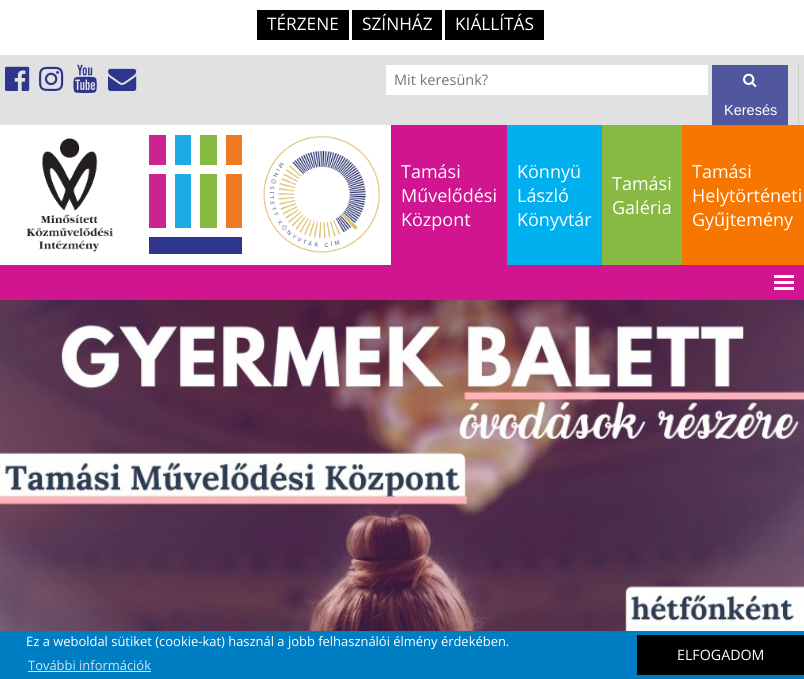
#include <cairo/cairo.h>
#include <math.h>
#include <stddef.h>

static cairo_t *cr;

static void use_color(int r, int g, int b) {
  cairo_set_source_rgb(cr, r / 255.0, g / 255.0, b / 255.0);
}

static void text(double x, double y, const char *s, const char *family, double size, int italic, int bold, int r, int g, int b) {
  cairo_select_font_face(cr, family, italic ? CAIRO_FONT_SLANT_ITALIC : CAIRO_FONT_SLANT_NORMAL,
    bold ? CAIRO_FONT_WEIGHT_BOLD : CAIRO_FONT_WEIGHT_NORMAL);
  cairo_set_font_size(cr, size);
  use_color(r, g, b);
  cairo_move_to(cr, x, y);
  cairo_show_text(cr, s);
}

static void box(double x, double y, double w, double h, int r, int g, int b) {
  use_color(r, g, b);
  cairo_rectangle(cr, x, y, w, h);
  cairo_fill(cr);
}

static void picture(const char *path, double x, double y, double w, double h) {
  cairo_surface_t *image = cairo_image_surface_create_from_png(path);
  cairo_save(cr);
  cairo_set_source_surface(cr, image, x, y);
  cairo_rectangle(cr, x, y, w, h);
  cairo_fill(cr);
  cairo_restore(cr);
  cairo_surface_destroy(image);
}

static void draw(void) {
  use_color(255, 255, 255);
  cairo_paint(cr);
  box(0, 55, 804, 70, 225, 225, 225);
  box(257, 10, 92, 30, 0, 0, 0);
  box(352, 10, 90, 30, 0, 0, 0);
  box(445, 10, 99, 30, 0, 0, 0);
  picture("img_01.png", 5, 66, 25, 25);
  picture("img_02.png", 39, 66, 25, 25);
  picture("img_03.png", 73, 64, 24, 29);
  picture("img_04.png", 108, 68, 29, 23);
  box(798, 65, 1, 60, 204, 204, 204);
  box(386, 65, 322, 30, 255, 255, 255);
  box(712, 65, 76, 60, 81, 87, 158);
  picture("img_05.png", 743, 73, 14, 14);
  picture("img_06.png", 26, 138, 87, 114);
  box(149, 135, 17, 30, 203, 35, 143);
  box(149, 174, 17, 54, 203, 35, 143);
  box(175, 135, 16, 30, 30, 171, 227);
  box(175, 174, 16, 54, 30, 171, 227);
  box(200, 135, 17, 30, 135, 186, 65);
  box(200, 174, 17, 54, 135, 186, 65);
  box(226, 135, 16, 30, 239, 121, 34);
  box(226, 174, 16, 54, 239, 121, 34);
  box(149, 237, 93, 17, 45, 53, 141);
  picture("img_07.png", 263, 135, 118, 118);
  box(391, 125, 116, 140, 209, 21, 144);
  box(507, 125, 95, 140, 0, 175, 237);
  box(602, 125, 80, 140, 136, 185, 67);
  box(682, 125, 122, 140, 247, 118, 0);
  box(0, 265, 804, 35, 209, 21, 144);
  box(774, 275, 20, 3, 255, 255, 255);
  box(774, 287, 20, 3, 255, 255, 255);
  box(774, 281, 20, 3, 255, 255, 255);
  picture("img_08.png", 0, 300, 804, 331);
  box(0, 631, 804, 48, 0, 126, 196);
  box(28, 671, 123, 1, 204, 229, 243);
  box(637, 635, 167, 40, 0, 0, 0);
  text(267, 30, "TÉRZENE", "Open Sans", 17.25, 0, 0, 255, 255, 255);
  text(362, 30, "SZÍNHÁZ", "Open Sans", 17.25, 0, 0, 255, 255, 255);
  text(455, 30, "KIÁLLÍTÁS", "Open Sans", 17.25, 0, 0, 255, 255, 255);
  text(394, 85, "Mit keresünk?", "Open Sans", 14.5, 0, 0, 117, 117, 117);
  text(724, 115, "Keresés", "Liberation Sans", 14.5, 0, 0, 255, 255, 255);
  text(401, 178, "Tamási", "Open Sans", 18, 0, 0, 255, 255, 255);
  text(401, 202, "Művelődési", "Open Sans", 18, 0, 0, 255, 255, 255);
  text(401, 226, "Központ", "Open Sans", 18, 0, 0, 255, 255, 255);
  text(517, 178, "Könnyü", "Open Sans", 18, 0, 0, 255, 255, 255);
  text(517, 202, "László", "Open Sans", 18, 0, 0, 255, 255, 255);
  text(517, 226, "Könyvtár", "Open Sans", 18, 0, 0, 255, 255, 255);
  text(612, 190, "Tamási", "Open Sans", 18, 0, 0, 255, 255, 255);
  text(612, 214, "Galéria", "Open Sans", 18, 0, 0, 255, 255, 255);
  text(692, 178, "Tamási", "Open Sans", 18, 0, 0, 255, 255, 255);
  text(692, 202, "Helytörténeti", "Open Sans", 18, 0, 0, 255, 255, 255);
  text(692, 226, "Gyűjtemény", "Open Sans", 18, 0, 0, 255, 255, 255);
  text(26, 646, "Ez a weboldal sütiket (cookie-kat) használ a jobb felhasználói élmény érdekében.", "Open Sans", 12.95, 0, 0, 255, 255, 255);
  text(28, 670, "További információk", "Open Sans", 12.95, 0, 0, 204, 229, 243);
  text(677, 660, "ELFOGADOM", "Open Sans", 14.25, 0, 0, 255, 255, 255);
}

int main(void) {
  cairo_surface_t *surface = cairo_image_surface_create(CAIRO_FORMAT_RGB24, 804, 679);
  cr = cairo_create(surface);
  cairo_font_options_t *options = cairo_font_options_create();
  cairo_font_options_set_hint_metrics(options, CAIRO_HINT_METRICS_OFF);
  cairo_font_options_set_hint_style(options, CAIRO_HINT_STYLE_NONE);
  cairo_set_font_options(cr, options);
  cairo_set_miter_limit(cr, 4);
  draw();
  cairo_surface_write_to_png(surface, "out.png");
  cairo_font_options_destroy(options);
  cairo_destroy(cr);
  cairo_surface_destroy(surface);
  return 0;
}
